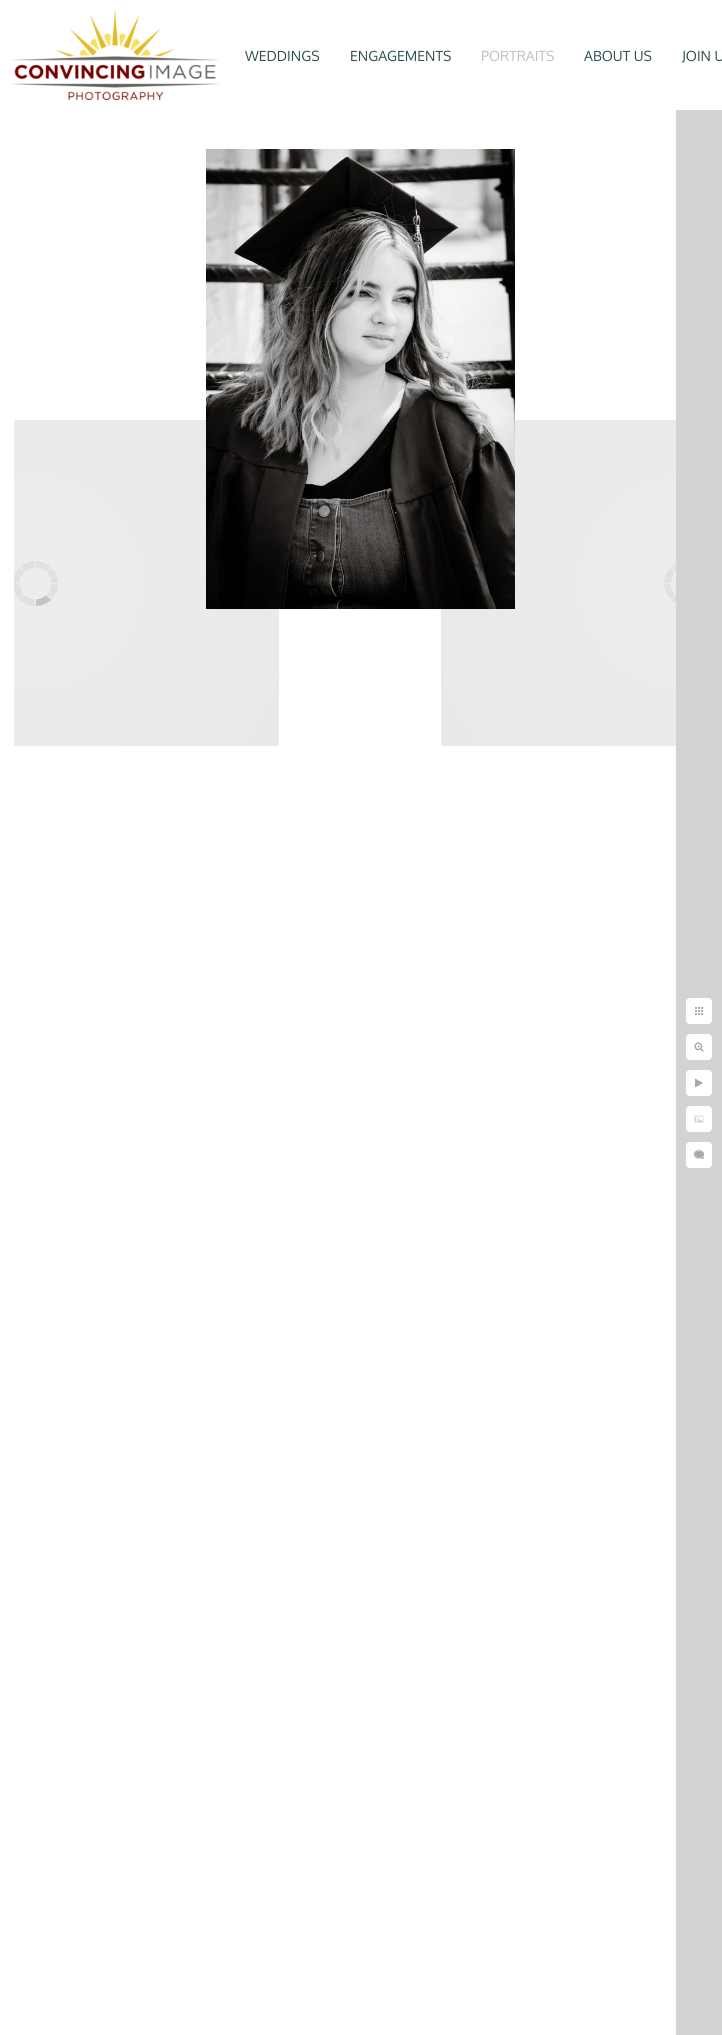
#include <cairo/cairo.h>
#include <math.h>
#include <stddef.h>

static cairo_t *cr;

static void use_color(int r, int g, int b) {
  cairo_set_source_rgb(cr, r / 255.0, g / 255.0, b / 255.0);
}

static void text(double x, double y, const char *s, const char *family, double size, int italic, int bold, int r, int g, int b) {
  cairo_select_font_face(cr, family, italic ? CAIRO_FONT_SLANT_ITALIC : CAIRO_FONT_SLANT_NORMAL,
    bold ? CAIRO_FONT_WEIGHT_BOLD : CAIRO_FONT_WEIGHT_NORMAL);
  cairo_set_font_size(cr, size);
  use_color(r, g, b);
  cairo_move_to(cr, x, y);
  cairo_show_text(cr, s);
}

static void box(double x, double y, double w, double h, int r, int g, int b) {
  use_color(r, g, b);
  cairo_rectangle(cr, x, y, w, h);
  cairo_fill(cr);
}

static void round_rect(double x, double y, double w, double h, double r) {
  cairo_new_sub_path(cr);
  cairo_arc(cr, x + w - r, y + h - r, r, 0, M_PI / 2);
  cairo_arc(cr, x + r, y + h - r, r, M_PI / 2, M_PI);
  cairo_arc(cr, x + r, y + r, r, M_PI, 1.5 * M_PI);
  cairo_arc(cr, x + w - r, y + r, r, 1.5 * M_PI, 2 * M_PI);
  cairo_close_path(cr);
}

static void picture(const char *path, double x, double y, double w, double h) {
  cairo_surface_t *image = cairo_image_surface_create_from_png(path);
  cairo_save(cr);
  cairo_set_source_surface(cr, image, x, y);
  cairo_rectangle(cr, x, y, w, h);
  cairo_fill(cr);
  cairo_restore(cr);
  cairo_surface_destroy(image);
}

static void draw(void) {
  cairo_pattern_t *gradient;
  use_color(255, 255, 255);
  cairo_paint(cr);
  picture("img_01.png", 10, 10, 210, 90);
  gradient = cairo_pattern_create_radial(35, 583, 0, 35, 583, 294);
  cairo_pattern_add_color_stop_rgba(gradient, 0, 0.929, 0.929, 0.929, 1);
  cairo_pattern_add_color_stop_rgba(gradient, 1, 0.914, 0.914, 0.914, 1);
  cairo_set_source(cr, gradient);
  cairo_pattern_destroy(gradient);
  cairo_rectangle(cr, 14, 420, 265, 326);
  cairo_fill(cr);
  picture("img_02.png", 14, 561, 44, 45);
  gradient = cairo_pattern_create_radial(686, 583, 0, 686, 583, 294);
  cairo_pattern_add_color_stop_rgba(gradient, 0, 0.929, 0.929, 0.929, 1);
  cairo_pattern_add_color_stop_rgba(gradient, 1, 0.914, 0.914, 0.914, 1);
  cairo_set_source(cr, gradient);
  cairo_pattern_destroy(gradient);
  cairo_rectangle(cr, 441, 420, 235, 326);
  cairo_fill(cr);
  picture("img_03.png", 206, 149, 309, 460);
  picture("img_04.png", 664, 564, 12, 39);
  box(676, 110, 46, 1925, 211, 211, 211);
  use_color(255, 255, 255);
  round_rect(686, 998, 26, 26, 4);
  cairo_fill(cr);
  picture("img_05.png", 695, 1007, 8, 8);
  round_rect(686, 1034, 26, 26, 4);
  cairo_fill(cr);
  picture("img_06.png", 694, 1042, 10, 10);
  round_rect(686, 1070, 26, 26, 4);
  cairo_fill(cr);
  picture("img_07.png", 695, 1078, 8, 10);
  round_rect(686, 1106, 26, 26, 4);
  cairo_fill(cr);
  picture("img_08.png", 694, 1115, 10, 8);
  round_rect(686, 1142, 26, 26, 4);
  cairo_fill(cr);
  picture("img_09.png", 693, 1150, 12, 9);
  text(245, 61, "WEDDINGS", "Oxygen", 14, 0, 0, 47, 79, 79);
  text(350, 61, "ENGAGEMENTS", "Oxygen", 14, 0, 0, 47, 79, 79);
  text(481, 61, "PORTRAITS", "Oxygen", 14, 0, 0, 192, 192, 192);
  text(584, 61, "ABOUT US", "Oxygen", 14, 0, 0, 47, 79, 79);
  text(682, 61, "JOIN U", "Oxygen", 14, 0, 0, 47, 79, 79);
}

int main(void) {
  cairo_surface_t *surface = cairo_image_surface_create(CAIRO_FORMAT_RGB24, 722, 2035);
  cr = cairo_create(surface);
  cairo_font_options_t *options = cairo_font_options_create();
  cairo_font_options_set_hint_metrics(options, CAIRO_HINT_METRICS_OFF);
  cairo_font_options_set_hint_style(options, CAIRO_HINT_STYLE_NONE);
  cairo_set_font_options(cr, options);
  cairo_set_miter_limit(cr, 4);
  draw();
  cairo_surface_write_to_png(surface, "out.png");
  cairo_font_options_destroy(options);
  cairo_destroy(cr);
  cairo_surface_destroy(surface);
  return 0;
}
